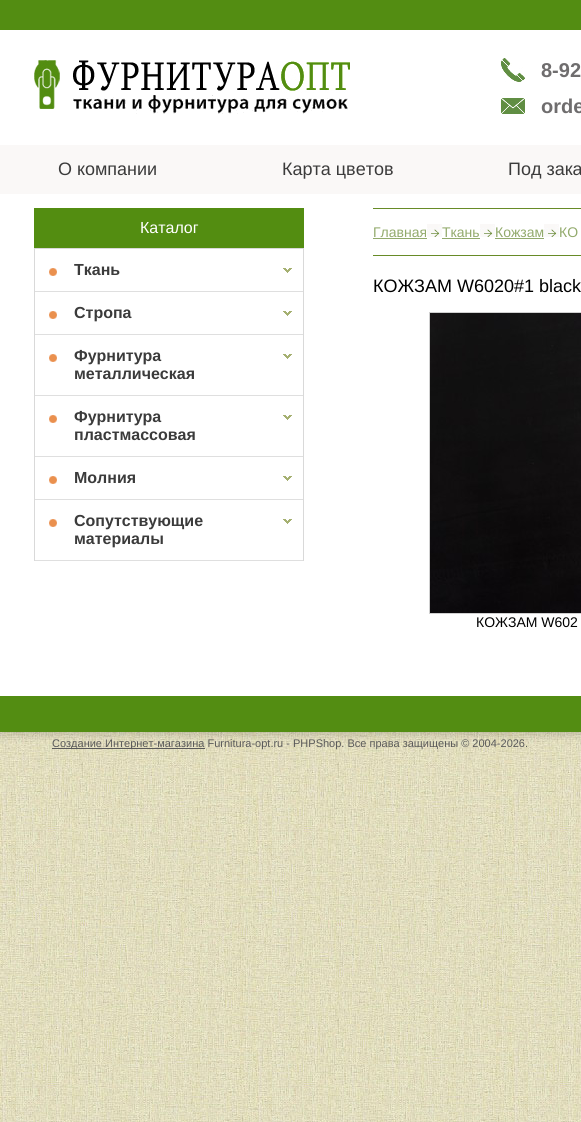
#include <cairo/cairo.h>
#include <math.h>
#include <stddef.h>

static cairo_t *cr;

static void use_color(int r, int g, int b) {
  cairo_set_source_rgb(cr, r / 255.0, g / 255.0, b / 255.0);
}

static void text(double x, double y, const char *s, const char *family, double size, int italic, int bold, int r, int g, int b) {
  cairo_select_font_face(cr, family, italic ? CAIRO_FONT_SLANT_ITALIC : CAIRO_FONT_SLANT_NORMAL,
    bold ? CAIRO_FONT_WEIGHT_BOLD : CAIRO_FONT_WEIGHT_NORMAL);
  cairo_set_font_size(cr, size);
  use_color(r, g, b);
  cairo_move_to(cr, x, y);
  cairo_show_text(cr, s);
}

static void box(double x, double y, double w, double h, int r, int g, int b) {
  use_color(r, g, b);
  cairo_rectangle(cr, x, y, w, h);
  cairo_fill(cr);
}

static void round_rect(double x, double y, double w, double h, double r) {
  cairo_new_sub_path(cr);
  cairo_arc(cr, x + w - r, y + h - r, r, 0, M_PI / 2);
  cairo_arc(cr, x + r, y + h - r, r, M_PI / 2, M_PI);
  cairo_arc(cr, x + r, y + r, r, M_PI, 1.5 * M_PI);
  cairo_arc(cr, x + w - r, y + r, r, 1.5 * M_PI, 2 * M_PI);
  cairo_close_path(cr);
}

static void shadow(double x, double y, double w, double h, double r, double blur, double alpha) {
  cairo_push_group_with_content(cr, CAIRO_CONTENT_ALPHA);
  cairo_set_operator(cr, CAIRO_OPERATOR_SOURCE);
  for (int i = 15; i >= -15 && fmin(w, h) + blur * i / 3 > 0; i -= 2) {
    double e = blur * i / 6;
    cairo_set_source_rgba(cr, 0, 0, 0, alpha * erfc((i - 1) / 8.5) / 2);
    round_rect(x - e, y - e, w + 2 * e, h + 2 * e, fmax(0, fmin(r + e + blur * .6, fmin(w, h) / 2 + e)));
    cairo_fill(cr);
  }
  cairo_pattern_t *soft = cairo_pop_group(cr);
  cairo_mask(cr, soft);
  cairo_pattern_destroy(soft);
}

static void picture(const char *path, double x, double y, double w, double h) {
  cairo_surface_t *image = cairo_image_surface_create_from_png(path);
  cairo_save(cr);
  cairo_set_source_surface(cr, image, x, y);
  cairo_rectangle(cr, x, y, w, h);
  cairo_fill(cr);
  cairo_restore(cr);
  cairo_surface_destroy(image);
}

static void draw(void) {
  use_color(255, 255, 255);
  cairo_paint(cr);
  picture("img_01.png", 0, 732, 581, 390);
  use_color(0, 0, 0);
  shadow(-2, -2, 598, 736, 0, 5, 0.2);
  box(0, 30, 581, 666, 255, 255, 255);
  box(0, 0, 581, 30, 83, 141, 18);
  picture("img_02.png", 34, 60, 316, 54);
  picture("img_03.png", 501, 58, 24, 24);
  picture("img_04.png", 501, 98, 24, 16);
  box(0, 145, 581, 49, 250, 248, 247);
  box(34, 208, 270, 40, 83, 141, 17);
  box(34, 248, 270, 1, 217, 217, 217);
  box(303, 248, 1, 313, 217, 217, 217);
  box(34, 248, 1, 313, 217, 217, 217);
  picture("img_05.png", 49, 268, 8, 8);
  picture("img_06.png", 283, 268, 9, 5);
  box(35, 291, 268, 1, 223, 223, 223);
  picture("img_05.png", 49, 311, 8, 8);
  picture("img_06.png", 283, 311, 9, 5);
  box(35, 334, 268, 1, 223, 223, 223);
  picture("img_05.png", 49, 354, 8, 8);
  picture("img_06.png", 283, 354, 9, 5);
  box(35, 395, 268, 1, 223, 223, 223);
  picture("img_05.png", 49, 415, 8, 8);
  picture("img_06.png", 283, 415, 9, 5);
  box(35, 456, 268, 1, 223, 223, 223);
  picture("img_05.png", 49, 476, 8, 8);
  picture("img_06.png", 283, 476, 9, 5);
  box(35, 499, 268, 1, 223, 223, 223);
  picture("img_05.png", 49, 519, 8, 8);
  picture("img_06.png", 283, 519, 9, 5);
  box(35, 560, 268, 1, 223, 223, 223);
  box(373, 208, 208, 1, 103, 139, 39);
  box(373, 255, 208, 1, 103, 139, 39);
  box(373, 238, 54, 1, 146, 170, 108);
  picture("img_07.png", 427, 224, 15, 13);
  box(442, 238, 38, 1, 146, 170, 108);
  picture("img_07.png", 480, 224, 15, 13);
  box(495, 238, 49, 1, 146, 170, 108);
  picture("img_07.png", 544, 224, 15, 13);
  cairo_rectangle(cr, 429.5, 312.5, 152, 301);
  use_color(208, 208, 208);
  cairo_set_line_width(cr, 1);
  cairo_stroke(cr);
  picture("img_08.png", 430, 313, 151, 300);
  box(0, 696, 581, 36, 83, 141, 18);
  box(52, 748, 153, 1, 89, 89, 89);
  text(541, 77, "8-92", "Liberation Sans", 20, 0, 1, 111, 109, 110);
  text(541, 113, "orde", "Liberation Sans", 20, 0, 1, 111, 109, 110);
  text(58, 175, "О компании", "Liberation Sans", 18, 0, 0, 59, 59, 59);
  text(282, 175, "Карта цветов", "Liberation Sans", 18, 0, 0, 59, 59, 59);
  text(508, 175, "Под зака", "Liberation Sans", 18, 0, 0, 59, 59, 59);
  text(140, 233, "Каталог", "Liberation Sans", 16, 0, 0, 255, 255, 255);
  text(74, 275, "Ткань", "Liberation Sans", 16, 0, 1, 59, 59, 59);
  text(74, 318, "Стропа", "Liberation Sans", 16, 0, 1, 59, 59, 59);
  text(74, 361, "Фурнитура", "Liberation Sans", 16, 0, 1, 59, 59, 59);
  text(74, 379, "металлическая", "Liberation Sans", 16, 0, 1, 59, 59, 59);
  text(74, 422, "Фурнитура", "Liberation Sans", 16, 0, 1, 59, 59, 59);
  text(74, 440, "пластмассовая", "Liberation Sans", 16, 0, 1, 59, 59, 59);
  text(74, 483, "Молния", "Liberation Sans", 16, 0, 1, 59, 59, 59);
  text(74, 526, "Сопутствующие", "Liberation Sans", 16, 0, 1, 59, 59, 59);
  text(74, 544, "материалы", "Liberation Sans", 16, 0, 1, 59, 59, 59);
  text(373, 237, "Главная", "Liberation Sans", 14, 0, 0, 146, 170, 108);
  text(442, 237, "Ткань", "Liberation Sans", 14, 0, 0, 146, 170, 108);
  text(495, 237, "Кожзам", "Liberation Sans", 14, 0, 0, 146, 170, 108);
  text(559, 237, "КО", "Liberation Sans", 14, 0, 0, 146, 170, 108);
  text(373, 292, "КОЖЗАМ W6020#1 black", "Liberation Sans", 18, 0, 0, 0, 0, 0);
  text(476, 627, "КОЖЗАМ W602", "Liberation Sans", 14, 0, 0, 0, 0, 0);
  text(52, 747, "Создание Интернет-магазина Furnitura-opt.ru - PHPShop. Все права защищены © 2004-2026.", "Liberation Sans", 11, 0, 0, 89, 89, 89);
}

int main(void) {
  cairo_surface_t *surface = cairo_image_surface_create(CAIRO_FORMAT_RGB24, 581, 1122);
  cr = cairo_create(surface);
  cairo_font_options_t *options = cairo_font_options_create();
  cairo_font_options_set_hint_metrics(options, CAIRO_HINT_METRICS_OFF);
  cairo_font_options_set_hint_style(options, CAIRO_HINT_STYLE_NONE);
  cairo_set_font_options(cr, options);
  cairo_set_miter_limit(cr, 4);
  draw();
  cairo_surface_write_to_png(surface, "out.png");
  cairo_font_options_destroy(options);
  cairo_destroy(cr);
  cairo_surface_destroy(surface);
  return 0;
}
